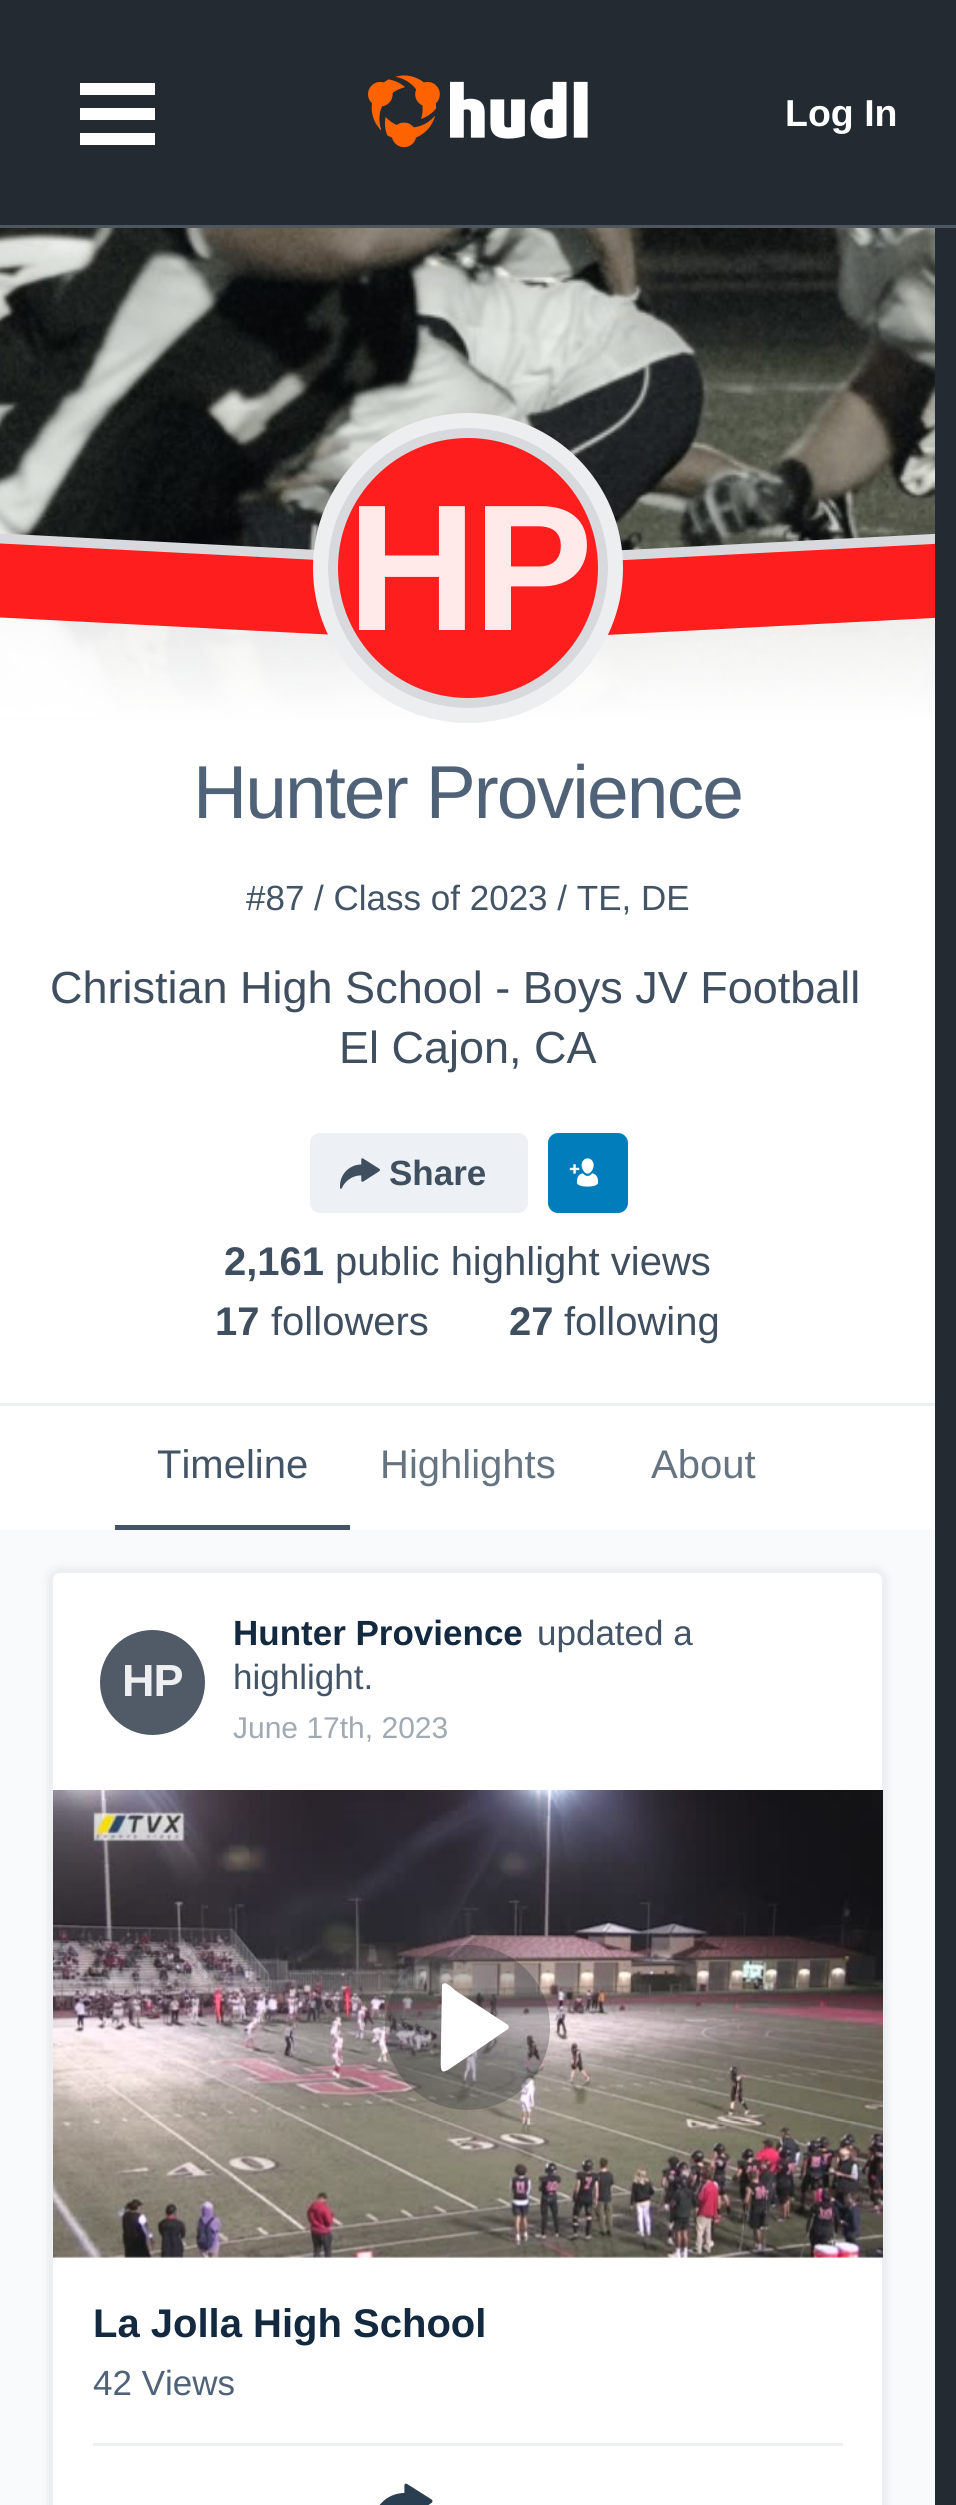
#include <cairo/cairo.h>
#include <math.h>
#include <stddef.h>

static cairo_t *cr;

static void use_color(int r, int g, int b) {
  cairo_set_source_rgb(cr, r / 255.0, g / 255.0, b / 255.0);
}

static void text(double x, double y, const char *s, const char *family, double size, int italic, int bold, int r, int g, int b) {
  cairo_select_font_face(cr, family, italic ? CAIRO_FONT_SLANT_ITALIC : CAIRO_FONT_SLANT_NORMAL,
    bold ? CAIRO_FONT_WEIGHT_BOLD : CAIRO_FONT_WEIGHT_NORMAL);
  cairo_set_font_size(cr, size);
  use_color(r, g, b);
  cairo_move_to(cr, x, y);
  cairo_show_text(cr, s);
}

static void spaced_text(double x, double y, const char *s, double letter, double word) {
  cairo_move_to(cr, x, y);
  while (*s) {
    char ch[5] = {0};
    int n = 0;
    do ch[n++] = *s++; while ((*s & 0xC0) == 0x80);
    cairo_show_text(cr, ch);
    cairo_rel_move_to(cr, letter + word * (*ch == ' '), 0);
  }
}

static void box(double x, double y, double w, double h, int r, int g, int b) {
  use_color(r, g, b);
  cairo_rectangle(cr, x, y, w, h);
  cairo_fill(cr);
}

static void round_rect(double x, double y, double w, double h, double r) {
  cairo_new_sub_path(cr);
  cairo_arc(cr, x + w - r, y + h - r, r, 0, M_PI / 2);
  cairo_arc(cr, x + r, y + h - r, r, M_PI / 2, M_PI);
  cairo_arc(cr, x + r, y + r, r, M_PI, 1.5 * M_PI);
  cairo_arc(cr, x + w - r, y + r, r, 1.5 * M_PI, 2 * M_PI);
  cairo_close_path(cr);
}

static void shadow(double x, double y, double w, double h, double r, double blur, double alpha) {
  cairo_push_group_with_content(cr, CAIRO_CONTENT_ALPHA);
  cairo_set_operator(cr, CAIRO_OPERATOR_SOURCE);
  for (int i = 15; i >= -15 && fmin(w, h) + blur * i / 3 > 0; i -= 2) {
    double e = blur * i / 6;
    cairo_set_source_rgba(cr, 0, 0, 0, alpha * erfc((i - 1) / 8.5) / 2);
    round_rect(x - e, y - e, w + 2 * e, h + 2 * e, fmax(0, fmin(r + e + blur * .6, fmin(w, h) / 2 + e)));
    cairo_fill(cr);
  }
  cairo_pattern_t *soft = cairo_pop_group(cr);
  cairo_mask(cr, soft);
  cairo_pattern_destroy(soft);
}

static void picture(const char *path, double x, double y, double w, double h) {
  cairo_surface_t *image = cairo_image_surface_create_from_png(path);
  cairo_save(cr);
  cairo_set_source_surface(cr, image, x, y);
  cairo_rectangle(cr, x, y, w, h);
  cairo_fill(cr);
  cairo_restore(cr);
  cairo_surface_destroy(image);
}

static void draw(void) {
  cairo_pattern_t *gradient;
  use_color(35, 42, 49);
  cairo_paint(cr);
  box(0, 225, 956, 3, 76, 87, 97);
  box(80, 83, 75, 12, 255, 255, 255);
  box(80, 108, 75, 12, 255, 255, 255);
  box(80, 133, 75, 12, 255, 255, 255);
  picture("img_01.png", 368, 75, 220, 73);
  picture("img_02.png", 0, 228, 935, 488);
  gradient = cairo_pattern_create_linear(467, 552, 468, 1403);
  cairo_pattern_add_color_stop_rgba(gradient, 0, 1, 1, 1, 0.85);
  cairo_pattern_add_color_stop_rgba(gradient, 0.2, 1, 1, 1, 1);
  cairo_set_source(cr, gradient);
  cairo_pattern_destroy(gradient);
  cairo_rectangle(cr, 0, 617, 935, 786);
  cairo_fill(cr);
  box(0, 1403, 935, 3, 237, 240, 242);
  cairo_save(cr);
  cairo_rectangle(cr, 0, 508, 935, 125);
  cairo_clip(cr);
  use_color(215, 217, 221);
  cairo_set_fill_rule(cr, CAIRO_FILL_RULE_EVEN_ODD);
  cairo_new_path(cr);
  cairo_move_to(cr, -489, 508);
  cairo_line_to(cr, 471, 558);
  cairo_line_to(cr, 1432, 508);
  cairo_line_to(cr, 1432, 582);
  cairo_line_to(cr, 471, 632);
  cairo_line_to(cr, -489, 582);
  cairo_close_path(cr);
  cairo_fill(cr);
  cairo_restore(cr);
  cairo_save(cr);
  cairo_rectangle(cr, 0, 518, 935, 125);
  cairo_clip(cr);
  use_color(255, 30, 30);
  cairo_set_fill_rule(cr, CAIRO_FILL_RULE_EVEN_ODD);
  cairo_new_path(cr);
  cairo_move_to(cr, -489, 518);
  cairo_line_to(cr, 471, 568);
  cairo_line_to(cr, 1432, 518);
  cairo_line_to(cr, 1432, 592);
  cairo_line_to(cr, 471, 642);
  cairo_line_to(cr, -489, 592);
  cairo_close_path(cr);
  cairo_fill(cr);
  cairo_restore(cr);
  use_color(255, 255, 255);
  cairo_arc(cr, 468, 568, 155, 0, 2 * M_PI);
  cairo_fill(cr);
  cairo_arc(cr, 468, 568, 147.5, 0, 2 * M_PI);
  cairo_set_source_rgba(cr, 0.271, 0.322, 0.369, 0.1);
  cairo_set_line_width(cr, 15);
  cairo_stroke(cr);
  use_color(255, 30, 30);
  cairo_arc(cr, 468, 568, 135, 0, 2 * M_PI);
  cairo_fill_preserve(cr);
  use_color(215, 217, 221);
  cairo_set_line_width(cr, 10);
  cairo_stroke(cr);
  use_color(237, 241, 245);
  round_rect(310, 1133, 218, 80, 10);
  cairo_fill(cr);
  picture("img_03.png", 340, 1158, 40, 31);
  use_color(2, 125, 187);
  round_rect(548, 1133, 80, 80, 10);
  cairo_fill(cr);
  picture("img_04.png", 569, 1158, 30, 29);
  box(0, 1406, 935, 124, 255, 255, 255);
  box(115, 1525, 235, 5, 66, 84, 101);
  box(0, 1530, 935, 975, 249, 250, 251);
  use_color(0, 0, 0);
  shadow(50, 1570, 835, 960, 10, 5, 0.1);
  use_color(255, 255, 255);
  round_rect(51.5, 1571.5, 832, 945, 8.5);
  cairo_fill_preserve(cr);
  use_color(237, 240, 242);
  cairo_set_line_width(cr, 3);
  cairo_stroke(cr);
  use_color(69, 81, 94);
  cairo_arc(cr, 152.5, 1682.5, 52.5, 0, 2 * M_PI);
  cairo_fill(cr);
  cairo_set_source_rgba(cr, 1, 1, 1, 0.06);
  cairo_new_path(cr);
  cairo_move_to(cr, 152, 1630);
  cairo_curve_to(cr, 181, 1630, 205, 1654, 205, 1682);
  cairo_curve_to(cr, 205, 1711, 181, 1735, 152, 1735);
  cairo_curve_to(cr, 124, 1735, 100, 1711, 100, 1682);
  cairo_curve_to(cr, 100, 1654, 124, 1630, 152, 1630);
  cairo_close_path(cr);
  cairo_fill(cr);
  picture("img_05.png", 53, 1790, 830, 468);
  cairo_set_source_rgba(cr, 0.137, 0.165, 0.192, 0.3);
  cairo_arc(cr, 467.5, 2027.5, 82.5, 0, 2 * M_PI);
  cairo_fill(cr);
  use_color(255, 255, 255);
  cairo_set_fill_rule(cr, CAIRO_FILL_RULE_EVEN_ODD);
  cairo_new_path(cr);
  cairo_move_to(cr, 442, 1985);
  cairo_line_to(cr, 441, 2041);
  cairo_curve_to(cr, 441, 2079, 436, 2078, 467, 2057);
  cairo_line_to(cr, 508, 2029);
  cairo_curve_to(cr, 509, 2028, 509, 2026, 508, 2025);
  cairo_line_to(cr, 456, 1991);
  cairo_curve_to(cr, 451, 1987, 445, 1980, 442, 1985);
  cairo_close_path(cr);
  cairo_fill(cr);
  box(93, 2443, 750, 3, 237, 240, 242);
  picture("img_06.png", 379, 2483, 54, 22);
  text(785, 126, "Log In", "Liberation Sans", 37.5, 0, 1, 255, 255, 255);
  cairo_set_font_size(cr, 180);
  use_color(255, 233, 233);
  spaced_text(347, 630, "HP", -4, 0);
  cairo_select_font_face(cr, "Liberation Sans", CAIRO_FONT_SLANT_NORMAL, CAIRO_FONT_WEIGHT_NORMAL);
  cairo_set_font_size(cr, 75);
  use_color(80, 98, 119);
  spaced_text(193, 818, "Hunter Provience", -1.9, 0);
  text(246, 910, "#87 / Class of 2023 / TE, DE", "Liberation Sans", 35, 0, 0, 66, 84, 101);
  text(50, 1003, "Christian High School - Boys JV Football", "Liberation Sans", 45, 0, 0, 63, 79, 95);
  text(339, 1063, "El Cajon, CA", "Liberation Sans", 45, 0, 0, 63, 79, 95);
  text(389, 1185, "Share", "Liberation Sans", 35, 0, 1, 63, 79, 95);
  text(224, 1275, "2,161", "Liberation Sans", 40, 0, 1, 63, 79, 95);
  text(335, 1275, "public highlight views", "Liberation Sans", 40, 0, 0, 63, 79, 95);
  text(215, 1335, "17", "Liberation Sans", 40, 0, 1, 63, 79, 95);
  text(271, 1335, "followers", "Liberation Sans", 40, 0, 0, 63, 79, 95);
  text(509, 1335, "27", "Liberation Sans", 40, 0, 1, 63, 79, 95);
  text(564, 1335, "following", "Liberation Sans", 40, 0, 0, 63, 79, 95);
  text(157, 1478, "Timeline", "Liberation Sans", 40, 0, 0, 66, 84, 101);
  text(380, 1478, "Highlights", "Liberation Sans", 40, 0, 0, 102, 116, 130);
  text(651, 1478, "About", "Liberation Sans", 40, 0, 0, 102, 116, 130);
  cairo_select_font_face(cr, "Liberation Sans", CAIRO_FONT_SLANT_NORMAL, CAIRO_FONT_WEIGHT_BOLD);
  cairo_set_font_size(cr, 45);
  use_color(238, 239, 240);
  spaced_text(122, 1696, "HP", -1, 0);
  text(233, 1645, "Hunter Provience", "Liberation Sans", 35, 0, 1, 19, 41, 63);
  text(537, 1645, "updated a", "Liberation Sans", 35, 0, 0, 66, 84, 101);
  text(233, 1689, "highlight.", "Liberation Sans", 35, 0, 0, 66, 84, 101);
  text(233, 1738, "June 17th, 2023", "Liberation Sans", 30, 0, 0, 161, 169, 178);
  text(93, 2337, "La Jolla High School", "Liberation Sans", 40, 0, 1, 19, 41, 63);
  text(93, 2395, "42 Views", "Liberation Sans", 35, 0, 0, 80, 98, 119);
}

int main(void) {
  cairo_surface_t *surface = cairo_image_surface_create(CAIRO_FORMAT_RGB24, 956, 2505);
  cr = cairo_create(surface);
  cairo_font_options_t *options = cairo_font_options_create();
  cairo_font_options_set_hint_metrics(options, CAIRO_HINT_METRICS_OFF);
  cairo_font_options_set_hint_style(options, CAIRO_HINT_STYLE_NONE);
  cairo_set_font_options(cr, options);
  cairo_set_miter_limit(cr, 4);
  draw();
  cairo_surface_write_to_png(surface, "out.png");
  cairo_font_options_destroy(options);
  cairo_destroy(cr);
  cairo_surface_destroy(surface);
  return 0;
}
